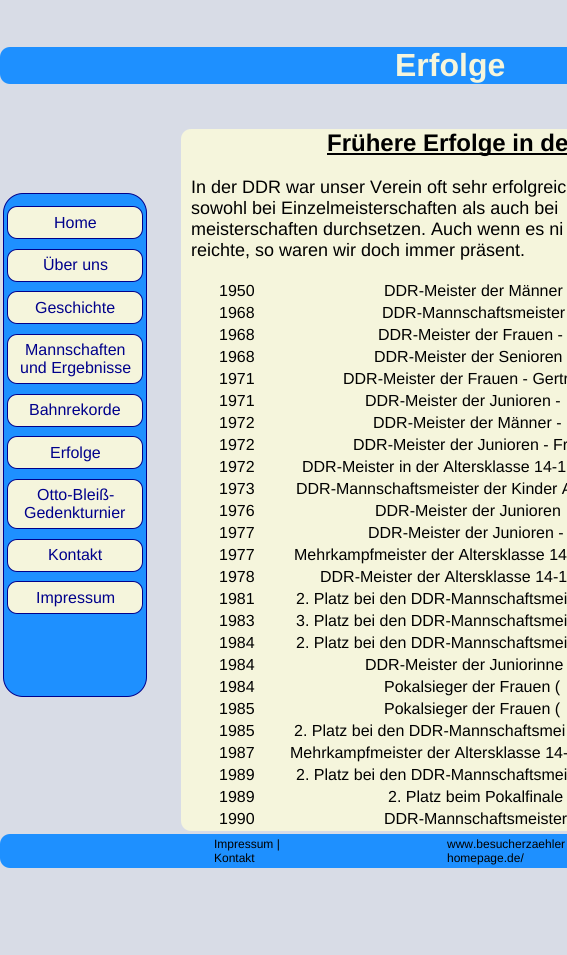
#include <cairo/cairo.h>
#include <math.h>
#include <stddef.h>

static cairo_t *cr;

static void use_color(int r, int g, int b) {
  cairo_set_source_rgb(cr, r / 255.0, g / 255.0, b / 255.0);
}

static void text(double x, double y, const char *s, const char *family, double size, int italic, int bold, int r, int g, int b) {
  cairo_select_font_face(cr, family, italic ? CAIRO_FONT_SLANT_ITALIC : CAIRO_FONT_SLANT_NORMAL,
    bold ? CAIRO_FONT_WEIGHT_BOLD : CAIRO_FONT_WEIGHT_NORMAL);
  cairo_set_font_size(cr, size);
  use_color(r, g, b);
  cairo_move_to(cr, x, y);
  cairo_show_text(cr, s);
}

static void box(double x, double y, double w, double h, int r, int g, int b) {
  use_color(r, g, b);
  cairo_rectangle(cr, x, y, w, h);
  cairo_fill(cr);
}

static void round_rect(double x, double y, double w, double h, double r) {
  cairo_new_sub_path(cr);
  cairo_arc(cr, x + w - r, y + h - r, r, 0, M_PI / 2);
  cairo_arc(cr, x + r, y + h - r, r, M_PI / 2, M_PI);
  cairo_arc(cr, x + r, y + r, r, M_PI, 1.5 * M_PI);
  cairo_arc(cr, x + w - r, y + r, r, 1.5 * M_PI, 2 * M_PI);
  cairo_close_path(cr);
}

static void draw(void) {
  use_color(216, 220, 230);
  cairo_paint(cr);
  use_color(30, 144, 255);
  round_rect(0, 47, 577, 37, 10);
  cairo_fill(cr);
  round_rect(3.5, 193.5, 143, 503, 19.5);
  cairo_fill_preserve(cr);
  use_color(0, 0, 139);
  cairo_set_line_width(cr, 1);
  cairo_stroke(cr);
  use_color(245, 245, 220);
  round_rect(7.5, 206.5, 135, 32, 9.5);
  cairo_fill_preserve(cr);
  use_color(0, 0, 139);
  cairo_stroke(cr);
  use_color(245, 245, 220);
  round_rect(7.5, 249.5, 135, 32, 9.5);
  cairo_fill_preserve(cr);
  use_color(0, 0, 139);
  cairo_stroke(cr);
  use_color(245, 245, 220);
  round_rect(7.5, 291.5, 135, 32, 9.5);
  cairo_fill_preserve(cr);
  use_color(0, 0, 139);
  cairo_stroke(cr);
  use_color(245, 245, 220);
  round_rect(7.5, 334.5, 135, 49, 9.5);
  cairo_fill_preserve(cr);
  use_color(0, 0, 139);
  cairo_stroke(cr);
  use_color(245, 245, 220);
  round_rect(7.5, 394.5, 135, 32, 9.5);
  cairo_fill_preserve(cr);
  use_color(0, 0, 139);
  cairo_stroke(cr);
  use_color(245, 245, 220);
  round_rect(7.5, 436.5, 135, 32, 9.5);
  cairo_fill_preserve(cr);
  use_color(0, 0, 139);
  cairo_stroke(cr);
  use_color(245, 245, 220);
  round_rect(7.5, 479.5, 135, 49, 9.5);
  cairo_fill_preserve(cr);
  use_color(0, 0, 139);
  cairo_stroke(cr);
  use_color(245, 245, 220);
  round_rect(7.5, 539.5, 135, 32, 9.5);
  cairo_fill_preserve(cr);
  use_color(0, 0, 139);
  cairo_stroke(cr);
  use_color(245, 245, 220);
  round_rect(7.5, 581.5, 135, 32, 9.5);
  cairo_fill_preserve(cr);
  use_color(0, 0, 139);
  cairo_stroke(cr);
  use_color(245, 245, 220);
  round_rect(181, 129, 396, 702, 10);
  cairo_fill(cr);
  box(327, 153, 240, 2, 0, 0, 0);
  use_color(30, 144, 255);
  round_rect(0, 834, 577, 34, 10);
  cairo_fill(cr);
  text(395, 76, "Erfolge", "Liberation Sans", 32, 0, 1, 245, 245, 220);
  text(54, 228, "Home", "Liberation Sans", 16, 0, 0, 0, 0, 139);
  text(43, 270, "Über uns", "Liberation Sans", 16, 0, 0, 0, 0, 139);
  text(35, 313, "Geschichte", "Liberation Sans", 16, 0, 0, 0, 0, 139);
  text(25, 355, "Mannschaften", "Liberation Sans", 16, 0, 0, 0, 0, 139);
  text(20, 373, "und Ergebnisse", "Liberation Sans", 16, 0, 0, 0, 0, 139);
  text(29, 415, "Bahnrekorde", "Liberation Sans", 16, 0, 0, 0, 0, 139);
  text(50, 458, "Erfolge", "Liberation Sans", 16, 0, 0, 0, 0, 139);
  text(37, 500, "Otto-Bleiß-", "Liberation Sans", 16, 0, 0, 0, 0, 139);
  text(24, 518, "Gedenkturnier", "Liberation Sans", 16, 0, 0, 0, 0, 139);
  text(48, 560, "Kontakt", "Liberation Sans", 16, 0, 0, 0, 0, 139);
  text(36, 603, "Impressum", "Liberation Sans", 16, 0, 0, 0, 0, 139);
  text(327, 151, "Frühere Erfolge in de", "Liberation Sans", 24, 0, 1, 0, 0, 0);
  text(191, 193, "In der DDR war unser Verein oft sehr erfolgreic", "Liberation Sans", 18, 0, 0, 0, 0, 0);
  text(191, 214, "sowohl bei Einzelmeisterschaften als auch bei", "Liberation Sans", 18, 0, 0, 0, 0, 0);
  text(191, 235, "meisterschaften durchsetzen. Auch wenn es ni", "Liberation Sans", 18, 0, 0, 0, 0, 0);
  text(191, 256, "reichte, so waren wir doch immer präsent.", "Liberation Sans", 18, 0, 0, 0, 0, 0);
  text(219, 296, "1950", "Liberation Sans", 16, 0, 0, 0, 0, 0);
  text(384, 296, "DDR-Meister der Männer", "Liberation Sans", 16, 0, 0, 0, 0, 0);
  text(219, 318, "1968", "Liberation Sans", 16, 0, 0, 0, 0, 0);
  text(382, 318, "DDR-Mannschaftsmeister", "Liberation Sans", 16, 0, 0, 0, 0, 0);
  text(219, 340, "1968", "Liberation Sans", 16, 0, 0, 0, 0, 0);
  text(378, 340, "DDR-Meister der Frauen -", "Liberation Sans", 16, 0, 0, 0, 0, 0);
  text(219, 362, "1968", "Liberation Sans", 16, 0, 0, 0, 0, 0);
  text(374, 362, "DDR-Meister der Senioren", "Liberation Sans", 16, 0, 0, 0, 0, 0);
  text(219, 384, "1971", "Liberation Sans", 16, 0, 0, 0, 0, 0);
  text(343, 384, "DDR-Meister der Frauen - Gertr", "Liberation Sans", 16, 0, 0, 0, 0, 0);
  text(219, 406, "1971", "Liberation Sans", 16, 0, 0, 0, 0, 0);
  text(365, 406, "DDR-Meister der Junioren -", "Liberation Sans", 16, 0, 0, 0, 0, 0);
  text(219, 428, "1972", "Liberation Sans", 16, 0, 0, 0, 0, 0);
  text(373, 428, "DDR-Meister der Männer -", "Liberation Sans", 16, 0, 0, 0, 0, 0);
  text(219, 450, "1972", "Liberation Sans", 16, 0, 0, 0, 0, 0);
  text(353, 450, "DDR-Meister der Junioren - Fr", "Liberation Sans", 16, 0, 0, 0, 0, 0);
  text(219, 472, "1972", "Liberation Sans", 16, 0, 0, 0, 0, 0);
  text(302, 472, "DDR-Meister in der Altersklasse 14-1", "Liberation Sans", 16, 0, 0, 0, 0, 0);
  text(219, 494, "1973", "Liberation Sans", 16, 0, 0, 0, 0, 0);
  text(296, 494, "DDR-Mannschaftsmeister der Kinder A", "Liberation Sans", 16, 0, 0, 0, 0, 0);
  text(219, 516, "1976", "Liberation Sans", 16, 0, 0, 0, 0, 0);
  text(375, 516, "DDR-Meister der Junioren", "Liberation Sans", 16, 0, 0, 0, 0, 0);
  text(219, 538, "1977", "Liberation Sans", 16, 0, 0, 0, 0, 0);
  text(368, 538, "DDR-Meister der Junioren -", "Liberation Sans", 16, 0, 0, 0, 0, 0);
  text(219, 560, "1977", "Liberation Sans", 16, 0, 0, 0, 0, 0);
  text(294, 560, "Mehrkampfmeister der Altersklasse 14", "Liberation Sans", 16, 0, 0, 0, 0, 0);
  text(219, 582, "1978", "Liberation Sans", 16, 0, 0, 0, 0, 0);
  text(320, 582, "DDR-Meister der Altersklasse 14-1", "Liberation Sans", 16, 0, 0, 0, 0, 0);
  text(219, 604, "1981", "Liberation Sans", 16, 0, 0, 0, 0, 0);
  text(296, 604, "2. Platz bei den DDR-Mannschaftsmei", "Liberation Sans", 16, 0, 0, 0, 0, 0);
  text(219, 626, "1983", "Liberation Sans", 16, 0, 0, 0, 0, 0);
  text(296, 626, "3. Platz bei den DDR-Mannschaftsmei", "Liberation Sans", 16, 0, 0, 0, 0, 0);
  text(219, 648, "1984", "Liberation Sans", 16, 0, 0, 0, 0, 0);
  text(296, 648, "2. Platz bei den DDR-Mannschaftsmei", "Liberation Sans", 16, 0, 0, 0, 0, 0);
  text(219, 670, "1984", "Liberation Sans", 16, 0, 0, 0, 0, 0);
  text(365, 670, "DDR-Meister der Juniorinne", "Liberation Sans", 16, 0, 0, 0, 0, 0);
  text(219, 692, "1984", "Liberation Sans", 16, 0, 0, 0, 0, 0);
  text(384, 692, "Pokalsieger der Frauen (", "Liberation Sans", 16, 0, 0, 0, 0, 0);
  text(219, 714, "1985", "Liberation Sans", 16, 0, 0, 0, 0, 0);
  text(384, 714, "Pokalsieger der Frauen (", "Liberation Sans", 16, 0, 0, 0, 0, 0);
  text(219, 736, "1985", "Liberation Sans", 16, 0, 0, 0, 0, 0);
  text(294, 736, "2. Platz bei den DDR-Mannschaftsmei", "Liberation Sans", 16, 0, 0, 0, 0, 0);
  text(219, 758, "1987", "Liberation Sans", 16, 0, 0, 0, 0, 0);
  text(290, 758, "Mehrkampfmeister der Altersklasse 14-", "Liberation Sans", 16, 0, 0, 0, 0, 0);
  text(219, 780, "1989", "Liberation Sans", 16, 0, 0, 0, 0, 0);
  text(296, 780, "2. Platz bei den DDR-Mannschaftsmei", "Liberation Sans", 16, 0, 0, 0, 0, 0);
  text(219, 802, "1989", "Liberation Sans", 16, 0, 0, 0, 0, 0);
  text(388, 802, "2. Platz beim Pokalfinale", "Liberation Sans", 16, 0, 0, 0, 0, 0);
  text(219, 824, "1990", "Liberation Sans", 16, 0, 0, 0, 0, 0);
  text(384, 824, "DDR-Mannschaftsmeister", "Liberation Sans", 16, 0, 0, 0, 0, 0);
  text(214, 848, "Impressum |", "Liberation Sans", 12, 0, 0, 0, 0, 0);
  text(214, 862, "Kontakt", "Liberation Sans", 12, 0, 0, 0, 0, 0);
  text(447, 848, "www.besucherzaehler", "Liberation Sans", 12, 0, 0, 0, 0, 0);
  text(447, 862, "homepage.de/", "Liberation Sans", 12, 0, 0, 0, 0, 0);
}

int main(void) {
  cairo_surface_t *surface = cairo_image_surface_create(CAIRO_FORMAT_RGB24, 567, 955);
  cr = cairo_create(surface);
  cairo_font_options_t *options = cairo_font_options_create();
  cairo_font_options_set_hint_metrics(options, CAIRO_HINT_METRICS_OFF);
  cairo_font_options_set_hint_style(options, CAIRO_HINT_STYLE_NONE);
  cairo_set_font_options(cr, options);
  cairo_set_miter_limit(cr, 4);
  draw();
  cairo_surface_write_to_png(surface, "out.png");
  cairo_font_options_destroy(options);
  cairo_destroy(cr);
  cairo_surface_destroy(surface);
  return 0;
}
